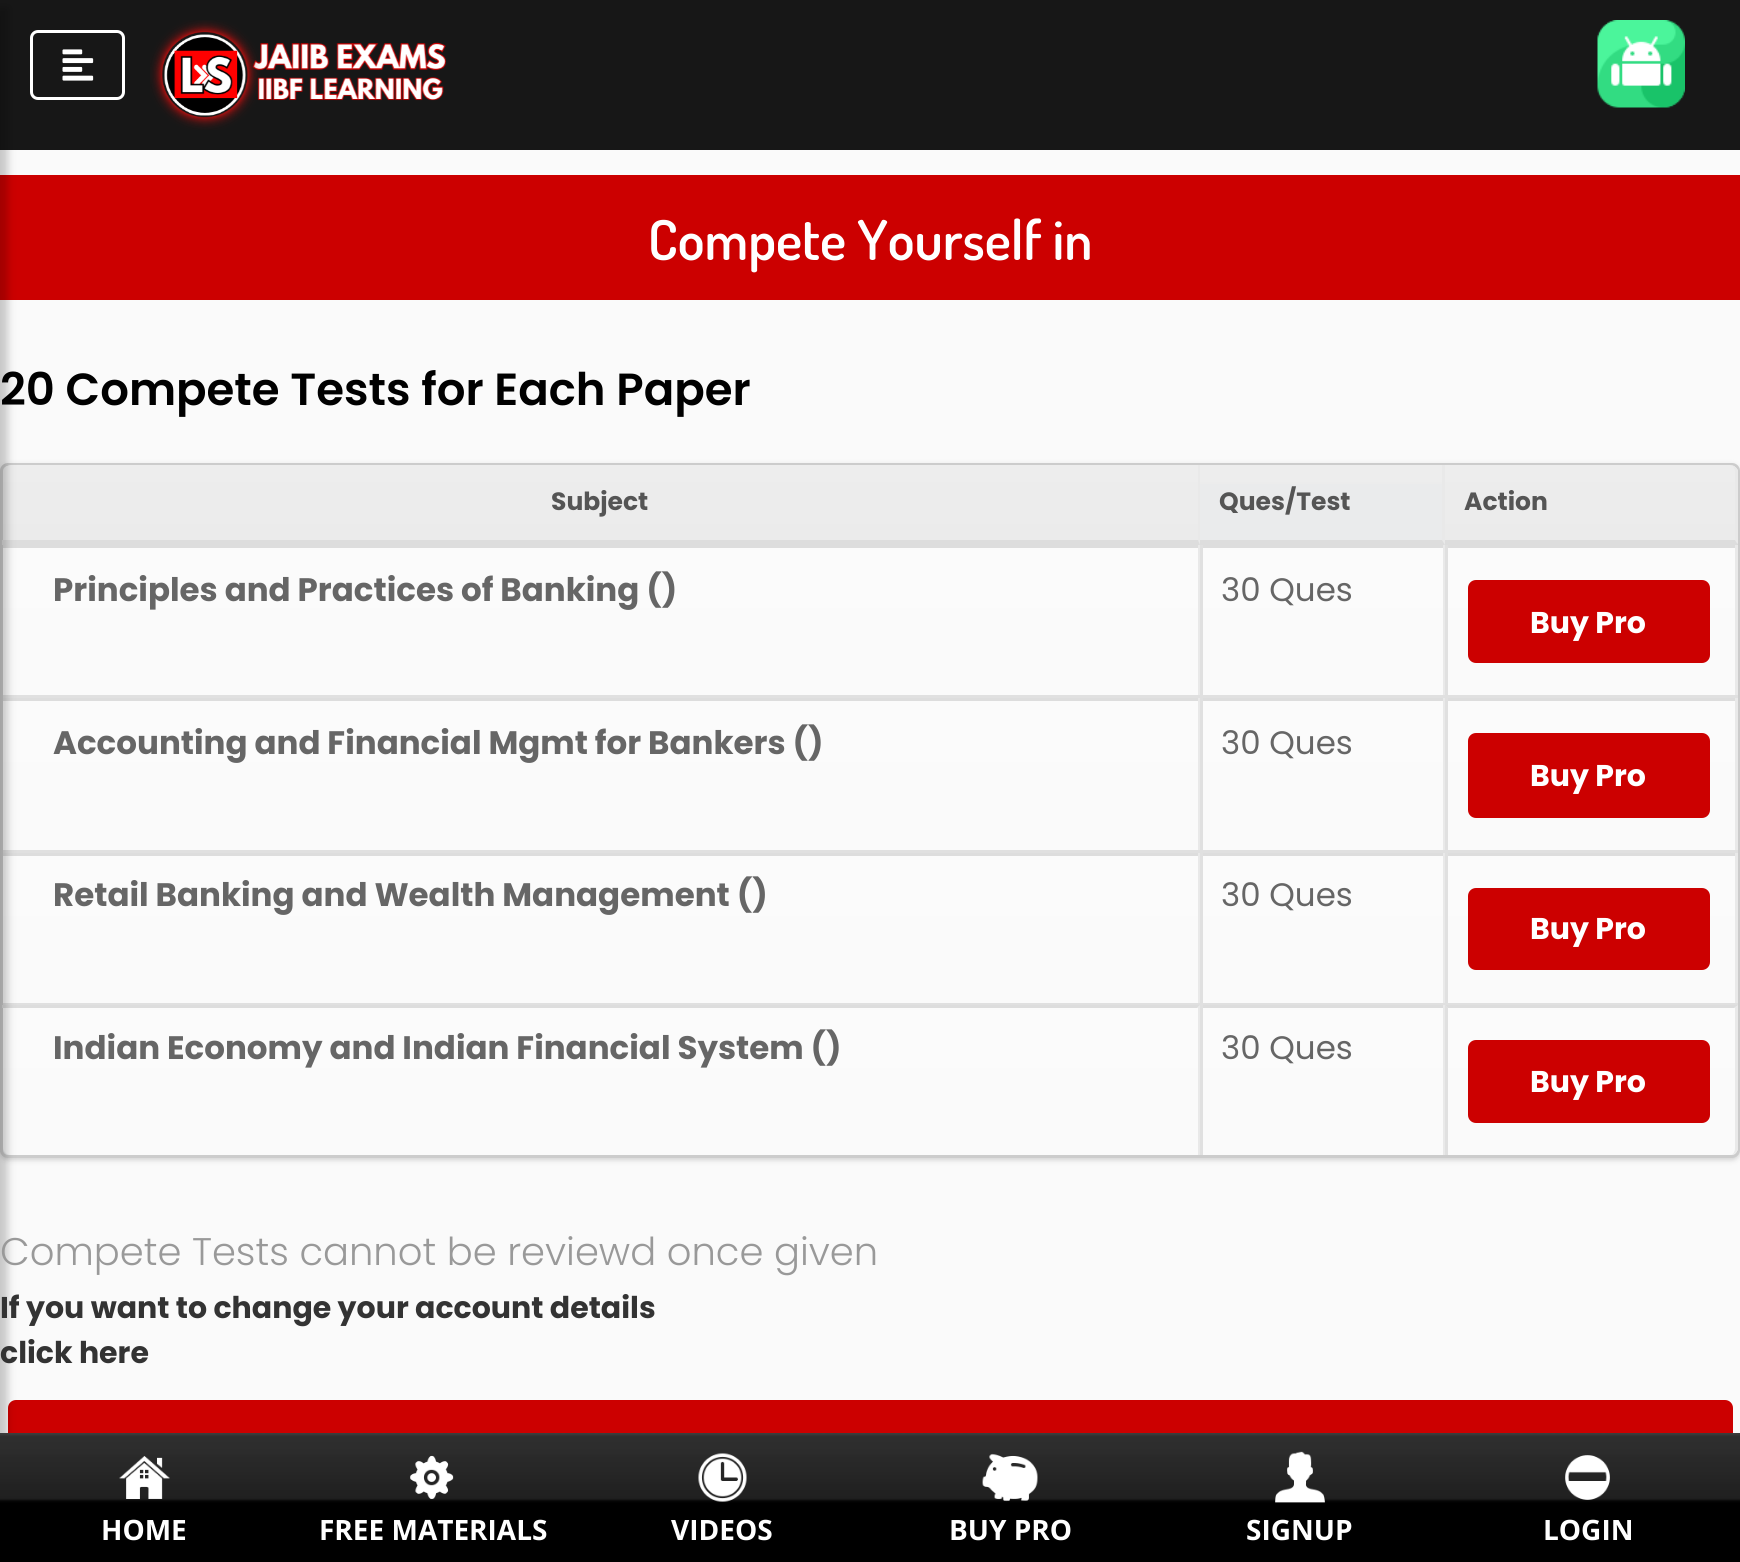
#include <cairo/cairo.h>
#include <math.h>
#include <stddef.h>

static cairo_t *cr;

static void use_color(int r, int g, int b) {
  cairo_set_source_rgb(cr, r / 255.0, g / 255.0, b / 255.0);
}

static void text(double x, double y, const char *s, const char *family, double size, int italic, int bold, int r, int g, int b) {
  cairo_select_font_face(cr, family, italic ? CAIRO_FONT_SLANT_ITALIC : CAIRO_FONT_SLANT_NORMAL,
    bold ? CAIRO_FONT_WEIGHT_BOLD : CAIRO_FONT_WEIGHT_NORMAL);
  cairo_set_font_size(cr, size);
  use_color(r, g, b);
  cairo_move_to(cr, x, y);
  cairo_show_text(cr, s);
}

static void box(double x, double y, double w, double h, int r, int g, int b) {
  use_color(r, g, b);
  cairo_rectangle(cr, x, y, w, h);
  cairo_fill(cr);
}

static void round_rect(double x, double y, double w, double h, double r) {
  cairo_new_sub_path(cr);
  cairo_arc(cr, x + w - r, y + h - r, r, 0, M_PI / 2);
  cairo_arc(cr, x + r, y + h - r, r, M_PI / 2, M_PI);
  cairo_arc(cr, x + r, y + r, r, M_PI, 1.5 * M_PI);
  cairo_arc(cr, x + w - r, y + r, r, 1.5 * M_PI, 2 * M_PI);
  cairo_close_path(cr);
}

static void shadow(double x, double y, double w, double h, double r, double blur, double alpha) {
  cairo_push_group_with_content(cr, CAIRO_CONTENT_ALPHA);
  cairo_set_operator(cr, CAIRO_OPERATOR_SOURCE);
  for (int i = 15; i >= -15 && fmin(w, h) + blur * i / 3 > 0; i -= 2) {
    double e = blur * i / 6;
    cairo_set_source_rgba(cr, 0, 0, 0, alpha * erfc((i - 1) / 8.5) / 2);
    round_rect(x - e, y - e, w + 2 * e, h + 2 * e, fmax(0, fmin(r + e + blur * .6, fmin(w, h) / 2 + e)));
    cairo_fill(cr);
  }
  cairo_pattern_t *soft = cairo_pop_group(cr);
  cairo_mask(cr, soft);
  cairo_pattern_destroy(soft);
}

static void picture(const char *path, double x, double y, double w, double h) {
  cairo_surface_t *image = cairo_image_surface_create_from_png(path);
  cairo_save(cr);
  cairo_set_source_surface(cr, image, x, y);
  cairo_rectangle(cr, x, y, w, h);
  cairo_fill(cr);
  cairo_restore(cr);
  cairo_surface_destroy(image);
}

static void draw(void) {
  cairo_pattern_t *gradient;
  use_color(250, 250, 250);
  cairo_paint(cr);
  box(0, 0, 1740, 150, 23, 23, 23);
  box(0, 175, 1740, 125, 204, 0, 0);
  use_color(209, 209, 209);
  shadow(0, 465, 1740, 695, 8, 2.5, 1);
  use_color(234, 235, 236);
  round_rect(1.5, 464.5, 1737, 692, 6.5);
  cairo_fill_preserve(cr);
  use_color(204, 204, 204);
  cairo_set_line_width(cr, 3);
  cairo_stroke(cr);
  gradient = cairo_pattern_create_linear(2.5, 465, 2.5, 540);
  cairo_pattern_add_color_stop_rgba(gradient, 0, 0.929, 0.929, 0.929, 1);
  cairo_pattern_add_color_stop_rgba(gradient, 1, 0.922, 0.922, 0.922, 1);
  cairo_set_source(cr, gradient);
  cairo_pattern_destroy(gradient);
  cairo_new_path(cr);
  cairo_move_to(cr, 11, 465);
  cairo_line_to(cr, 1200, 465);
  cairo_line_to(cr, 1200, 540);
  cairo_line_to(cr, 3, 540);
  cairo_line_to(cr, 3, 473);
  cairo_curve_to(cr, 3, 468.5, 6.5, 465, 11, 465);
  cairo_close_path(cr);
  cairo_fill(cr);
  use_color(233, 233, 233);
  cairo_new_path(cr);
  cairo_move_to(cr, 1200, 465);
  cairo_line_to(cr, 1198, 465);
  cairo_line_to(cr, 1198, 540);
  cairo_line_to(cr, 1200, 545);
  cairo_close_path(cr);
  cairo_fill(cr);
  use_color(221, 221, 221);
  cairo_new_path(cr);
  cairo_move_to(cr, 1200, 545);
  cairo_line_to(cr, 2, 545);
  cairo_line_to(cr, 2, 540);
  cairo_line_to(cr, 1198, 540);
  cairo_close_path(cr);
  cairo_fill(cr);
  gradient = cairo_pattern_create_linear(2.5, 548, 2.5, 695);
  cairo_pattern_add_color_stop_rgba(gradient, 0, 0.984, 0.984, 0.984, 1);
  cairo_pattern_add_color_stop_rgba(gradient, 1, 0.98, 0.98, 0.98, 1);
  cairo_set_source(cr, gradient);
  cairo_pattern_destroy(gradient);
  cairo_rectangle(cr, 3, 548, 1195, 147);
  cairo_fill(cr);
  box(3, 545, 1735, 3, 221, 221, 221);
  box(1198, 545, 2, 153, 233, 233, 233);
  box(3, 695, 1197, 3, 224, 224, 224);
  gradient = cairo_pattern_create_linear(2.5, 700, 2.5, 850);
  cairo_pattern_add_color_stop_rgba(gradient, 0, 0.984, 0.984, 0.984, 1);
  cairo_pattern_add_color_stop_rgba(gradient, 1, 0.98, 0.98, 0.98, 1);
  cairo_set_source(cr, gradient);
  cairo_pattern_destroy(gradient);
  cairo_rectangle(cr, 3, 701, 1195, 149);
  cairo_fill(cr);
  box(3, 698, 1735, 3, 221, 221, 221);
  box(1198, 698, 2, 155, 233, 233, 233);
  box(3, 850, 1197, 3, 224, 224, 224);
  gradient = cairo_pattern_create_linear(2.5, 855, 2.5, 1003);
  cairo_pattern_add_color_stop_rgba(gradient, 0, 0.984, 0.984, 0.984, 1);
  cairo_pattern_add_color_stop_rgba(gradient, 1, 0.98, 0.98, 0.98, 1);
  cairo_set_source(cr, gradient);
  cairo_pattern_destroy(gradient);
  cairo_rectangle(cr, 3, 856, 1195, 147);
  cairo_fill(cr);
  box(3, 853, 1735, 3, 221, 221, 221);
  box(1198, 853, 2, 152, 233, 233, 233);
  box(3, 1003, 1197, 3, 224, 224, 224);
  gradient = cairo_pattern_create_linear(2.5, 1008, 2.5, 1155);
  cairo_pattern_add_color_stop_rgba(gradient, 0, 0.984, 0.984, 0.984, 1);
  cairo_pattern_add_color_stop_rgba(gradient, 1, 0.98, 0.98, 0.98, 1);
  cairo_set_source(cr, gradient);
  cairo_pattern_destroy(gradient);
  cairo_new_path(cr);
  cairo_move_to(cr, 3, 1008);
  cairo_line_to(cr, 1200, 1008);
  cairo_line_to(cr, 1200, 1155);
  cairo_line_to(cr, 11, 1155);
  cairo_curve_to(cr, 6.5, 1155, 3, 1151.5, 3, 1147);
  cairo_close_path(cr);
  cairo_fill(cr);
  use_color(221, 221, 221);
  cairo_new_path(cr);
  cairo_move_to(cr, 2, 1005);
  cairo_line_to(cr, 1200, 1005);
  cairo_line_to(cr, 1197, 1008);
  cairo_line_to(cr, 2, 1008);
  cairo_close_path(cr);
  cairo_fill(cr);
  use_color(204, 0, 0);
  round_rect(8, 1400, 1725, 160, 8);
  cairo_fill(cr);
  use_color(0, 0, 0);
  shadow(-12, 8, 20, 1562, 0, 4, 0.2);
  round_rect(31.5, 31.5, 92, 67, 6.5);
  use_color(255, 255, 255);
  cairo_stroke(cr);
  picture("img_01.png", 62, 49, 32, 32);
  picture("img_02.png", 150, 20, 297, 110);
  picture("img_03.png", 1597, 20, 88, 88);
  gradient = cairo_pattern_create_linear(1200, 465, 1200, 540);
  cairo_pattern_add_color_stop_rgba(gradient, 0, 0.929, 0.929, 0.929, 1);
  cairo_pattern_add_color_stop_rgba(gradient, 1, 0.922, 0.922, 0.922, 1);
  cairo_set_source(cr, gradient);
  cairo_pattern_destroy(gradient);
  cairo_rectangle(cr, 1200, 465, 242, 19);
  cairo_fill(cr);
  use_color(233, 233, 233);
  cairo_new_path(cr);
  cairo_move_to(cr, 1445, 465);
  cairo_line_to(cr, 1445, 545);
  cairo_line_to(cr, 1442, 540);
  cairo_line_to(cr, 1442, 465);
  cairo_close_path(cr);
  cairo_fill(cr);
  use_color(221, 221, 221);
  cairo_new_path(cr);
  cairo_move_to(cr, 1445, 545);
  cairo_line_to(cr, 1200, 545);
  cairo_line_to(cr, 1200, 540);
  cairo_line_to(cr, 1442, 540);
  cairo_close_path(cr);
  cairo_fill(cr);
  gradient = cairo_pattern_create_linear(1445, 465, 1445, 540);
  cairo_pattern_add_color_stop_rgba(gradient, 0, 0.929, 0.929, 0.929, 1);
  cairo_pattern_add_color_stop_rgba(gradient, 1, 0.922, 0.922, 0.922, 1);
  cairo_set_source(cr, gradient);
  cairo_pattern_destroy(gradient);
  cairo_new_path(cr);
  cairo_move_to(cr, 1445, 465);
  cairo_line_to(cr, 1730, 465);
  cairo_curve_to(cr, 1734.5, 465, 1738, 468.5, 1738, 473);
  cairo_line_to(cr, 1738, 540);
  cairo_line_to(cr, 1445, 540);
  cairo_close_path(cr);
  cairo_fill(cr);
  use_color(233, 233, 233);
  cairo_new_path(cr);
  cairo_move_to(cr, 1738, 470);
  cairo_curve_to(cr, 1736, 467, 1733, 465, 1730, 465);
  cairo_curve_to(cr, 1733, 465, 1735, 468, 1735, 472);
  cairo_line_to(cr, 1735, 540);
  cairo_line_to(cr, 1738, 545);
  cairo_close_path(cr);
  cairo_fill(cr);
  use_color(221, 221, 221);
  cairo_new_path(cr);
  cairo_move_to(cr, 1738, 545);
  cairo_line_to(cr, 1735, 540);
  cairo_line_to(cr, 1445, 540);
  cairo_line_to(cr, 1445, 545);
  cairo_close_path(cr);
  cairo_fill(cr);
  gradient = cairo_pattern_create_linear(1203, 548, 1203, 695);
  cairo_pattern_add_color_stop_rgba(gradient, 0, 0.984, 0.984, 0.984, 1);
  cairo_pattern_add_color_stop_rgba(gradient, 1, 0.98, 0.98, 0.98, 1);
  cairo_set_source(cr, gradient);
  cairo_pattern_destroy(gradient);
  cairo_rectangle(cr, 1203, 548, 240, 147);
  cairo_fill(cr);
  box(1443, 545, 2, 153, 233, 233, 233);
  box(1200, 695, 245, 3, 224, 224, 224);
  box(1200, 545, 3, 153, 224, 224, 224);
  gradient = cairo_pattern_create_linear(1448, 548, 1448, 695);
  cairo_pattern_add_color_stop_rgba(gradient, 0, 0.984, 0.984, 0.984, 1);
  cairo_pattern_add_color_stop_rgba(gradient, 1, 0.98, 0.98, 0.98, 1);
  cairo_set_source(cr, gradient);
  cairo_pattern_destroy(gradient);
  cairo_rectangle(cr, 1448, 548, 287, 147);
  cairo_fill(cr);
  box(1735, 545, 3, 153, 233, 233, 233);
  box(1445, 695, 293, 3, 224, 224, 224);
  box(1445, 545, 3, 153, 224, 224, 224);
  use_color(204, 0, 0);
  round_rect(1468, 580, 242, 83, 8);
  cairo_fill(cr);
  gradient = cairo_pattern_create_linear(1203, 700, 1203, 850);
  cairo_pattern_add_color_stop_rgba(gradient, 0, 0.984, 0.984, 0.984, 1);
  cairo_pattern_add_color_stop_rgba(gradient, 1, 0.98, 0.98, 0.98, 1);
  cairo_set_source(cr, gradient);
  cairo_pattern_destroy(gradient);
  cairo_rectangle(cr, 1203, 701, 240, 149);
  cairo_fill(cr);
  box(1443, 698, 2, 155, 233, 233, 233);
  box(1200, 850, 245, 3, 224, 224, 224);
  box(1200, 698, 3, 155, 224, 224, 224);
  gradient = cairo_pattern_create_linear(1448, 700, 1448, 850);
  cairo_pattern_add_color_stop_rgba(gradient, 0, 0.984, 0.984, 0.984, 1);
  cairo_pattern_add_color_stop_rgba(gradient, 1, 0.98, 0.98, 0.98, 1);
  cairo_set_source(cr, gradient);
  cairo_pattern_destroy(gradient);
  cairo_rectangle(cr, 1448, 701, 287, 149);
  cairo_fill(cr);
  box(1735, 698, 3, 155, 233, 233, 233);
  box(1445, 850, 293, 3, 224, 224, 224);
  box(1445, 698, 3, 155, 224, 224, 224);
  use_color(204, 0, 0);
  round_rect(1468, 733, 242, 85, 8);
  cairo_fill(cr);
  gradient = cairo_pattern_create_linear(1203, 855, 1203, 1003);
  cairo_pattern_add_color_stop_rgba(gradient, 0, 0.984, 0.984, 0.984, 1);
  cairo_pattern_add_color_stop_rgba(gradient, 1, 0.98, 0.98, 0.98, 1);
  cairo_set_source(cr, gradient);
  cairo_pattern_destroy(gradient);
  cairo_rectangle(cr, 1203, 856, 240, 147);
  cairo_fill(cr);
  box(1443, 853, 2, 152, 233, 233, 233);
  box(1200, 1003, 245, 2, 224, 224, 224);
  box(1200, 853, 3, 152, 224, 224, 224);
  gradient = cairo_pattern_create_linear(1448, 855, 1448, 1003);
  cairo_pattern_add_color_stop_rgba(gradient, 0, 0.984, 0.984, 0.984, 1);
  cairo_pattern_add_color_stop_rgba(gradient, 1, 0.98, 0.98, 0.98, 1);
  cairo_set_source(cr, gradient);
  cairo_pattern_destroy(gradient);
  cairo_rectangle(cr, 1448, 856, 287, 147);
  cairo_fill(cr);
  box(1735, 853, 3, 152, 233, 233, 233);
  box(1445, 1003, 293, 3, 224, 224, 224);
  box(1445, 853, 3, 152, 224, 224, 224);
  use_color(204, 0, 0);
  round_rect(1468, 888, 242, 82, 8);
  cairo_fill(cr);
  use_color(233, 233, 233);
  cairo_new_path(cr);
  cairo_move_to(cr, 1200, 1005);
  cairo_line_to(cr, 1197, 1008);
  cairo_line_to(cr, 1198, 1008);
  cairo_line_to(cr, 1198, 1155);
  cairo_line_to(cr, 1200, 1155);
  cairo_close_path(cr);
  cairo_fill(cr);
  gradient = cairo_pattern_create_linear(1203, 1008, 1203, 1155);
  cairo_pattern_add_color_stop_rgba(gradient, 0, 0.984, 0.984, 0.984, 1);
  cairo_pattern_add_color_stop_rgba(gradient, 1, 0.98, 0.98, 0.98, 1);
  cairo_set_source(cr, gradient);
  cairo_pattern_destroy(gradient);
  cairo_rectangle(cr, 1203, 1008, 240, 147);
  cairo_fill(cr);
  box(1200, 1005, 245, 3, 221, 221, 221);
  box(1443, 1005, 3, 150, 233, 233, 233);
  box(1200, 1005, 3, 150, 224, 224, 224);
  gradient = cairo_pattern_create_linear(1448, 1008, 1448, 1155);
  cairo_pattern_add_color_stop_rgba(gradient, 0, 0.984, 0.984, 0.984, 1);
  cairo_pattern_add_color_stop_rgba(gradient, 1, 0.98, 0.98, 0.98, 1);
  cairo_set_source(cr, gradient);
  cairo_pattern_destroy(gradient);
  cairo_new_path(cr);
  cairo_move_to(cr, 1445, 1008);
  cairo_line_to(cr, 1738, 1008);
  cairo_line_to(cr, 1738, 1147);
  cairo_curve_to(cr, 1738, 1151.5, 1734.5, 1155, 1730, 1155);
  cairo_line_to(cr, 1445, 1155);
  cairo_close_path(cr);
  cairo_fill(cr);
  use_color(221, 221, 221);
  cairo_new_path(cr);
  cairo_move_to(cr, 1445, 1005);
  cairo_line_to(cr, 1448, 1008);
  cairo_line_to(cr, 1734, 1008);
  cairo_line_to(cr, 1738, 1005);
  cairo_close_path(cr);
  cairo_fill(cr);
  use_color(233, 233, 233);
  cairo_new_path(cr);
  cairo_move_to(cr, 1738, 1005);
  cairo_line_to(cr, 1738, 1150);
  cairo_curve_to(cr, 1736, 1153, 1733, 1155, 1730, 1155);
  cairo_curve_to(cr, 1733, 1155, 1735, 1152, 1735, 1148);
  cairo_line_to(cr, 1735, 1008);
  cairo_line_to(cr, 1734, 1008);
  cairo_close_path(cr);
  cairo_fill(cr);
  use_color(224, 224, 224);
  cairo_new_path(cr);
  cairo_move_to(cr, 1445, 1005);
  cairo_line_to(cr, 1445, 1155);
  cairo_line_to(cr, 1448, 1155);
  cairo_line_to(cr, 1448, 1008);
  cairo_close_path(cr);
  cairo_fill(cr);
  use_color(204, 0, 0);
  round_rect(1468, 1040, 242, 83, 8);
  cairo_fill(cr);
  picture("img_04.png", 0, 1433, 1740, 129);
  picture("img_05.png", 119, 1456, 51, 43);
  picture("img_06.png", 410, 1455, 44, 44);
  picture("img_07.png", 698, 1453, 49, 49);
  picture("img_08.png", 982, 1453, 56, 49);
  picture("img_09.png", 1275, 1451, 50, 52);
  picture("img_10.png", 1565, 1455, 45, 45);
  text(648, 260, "Compete Yourself in", "Dosis SemiBold", 55, 0, 0, 255, 255, 255);
  text(0, 405, "20 Compete Tests for Each Paper", "Poppins SemiBold", 45, 0, 0, 0, 0, 0);
  text(551, 510, "Subject", "Poppins", 25, 0, 1, 85, 85, 85);
  text(1219, 510, "Ques/Test", "Poppins", 25, 0, 1, 85, 85, 85);
  text(1464, 510, "Action", "Poppins", 25, 0, 1, 85, 85, 85);
  text(53, 601, "Principles and Practices of Banking ()", "Poppins", 32.5, 0, 1, 102, 102, 102);
  text(1221, 601, "30 Ques", "Poppins", 32.5, 0, 0, 102, 102, 102);
  text(1530, 633, "Buy Pro", "Poppins", 30, 0, 1, 255, 255, 255);
  text(53, 754, "Accounting and Financial Mgmt for Bankers ()", "Poppins", 32.5, 0, 1, 102, 102, 102);
  text(1221, 754, "30 Ques", "Poppins", 32.5, 0, 0, 102, 102, 102);
  text(1530, 786, "Buy Pro", "Poppins", 30, 0, 1, 255, 255, 255);
  text(53, 906, "Retail Banking and Wealth Management ()", "Poppins", 32.5, 0, 1, 102, 102, 102);
  text(1221, 906, "30 Ques", "Poppins", 32.5, 0, 0, 102, 102, 102);
  text(1530, 939, "Buy Pro", "Poppins", 30, 0, 1, 255, 255, 255);
  text(53, 1059, "Indian Economy and Indian Financial System ()", "Poppins", 32.5, 0, 1, 102, 102, 102);
  text(1221, 1059, "30 Ques", "Poppins", 32.5, 0, 0, 102, 102, 102);
  text(1530, 1092, "Buy Pro", "Poppins", 30, 0, 1, 255, 255, 255);
  text(0, 1265, "Compete Tests cannot be reviewd once given", "Poppins Light", 38.5, 0, 0, 153, 153, 153);
  text(0, 1318, "If you want to change your account details", "Poppins", 30, 0, 1, 51, 51, 51);
  text(0, 1363, "click here", "Poppins", 30, 0, 1, 51, 51, 51);
  text(101, 1540, "HOME", "Open Sans", 28, 0, 1, 255, 255, 255);
  text(319, 1540, "FREE MATERIALS", "Open Sans", 28, 0, 1, 255, 255, 255);
  text(671, 1540, "VIDEOS", "Open Sans", 28, 0, 1, 255, 255, 255);
  text(949, 1540, "BUY PRO", "Open Sans", 28, 0, 1, 255, 255, 255);
  text(1246, 1540, "SIGNUP", "Open Sans", 28, 0, 1, 255, 255, 255);
  text(1543, 1540, "LOGIN", "Open Sans", 28, 0, 1, 255, 255, 255);
}

int main(void) {
  cairo_surface_t *surface = cairo_image_surface_create(CAIRO_FORMAT_RGB24, 1740, 1562);
  cr = cairo_create(surface);
  cairo_font_options_t *options = cairo_font_options_create();
  cairo_font_options_set_hint_metrics(options, CAIRO_HINT_METRICS_OFF);
  cairo_font_options_set_hint_style(options, CAIRO_HINT_STYLE_NONE);
  cairo_set_font_options(cr, options);
  cairo_set_miter_limit(cr, 4);
  draw();
  cairo_surface_write_to_png(surface, "out.png");
  cairo_font_options_destroy(options);
  cairo_destroy(cr);
  cairo_surface_destroy(surface);
  return 0;
}
